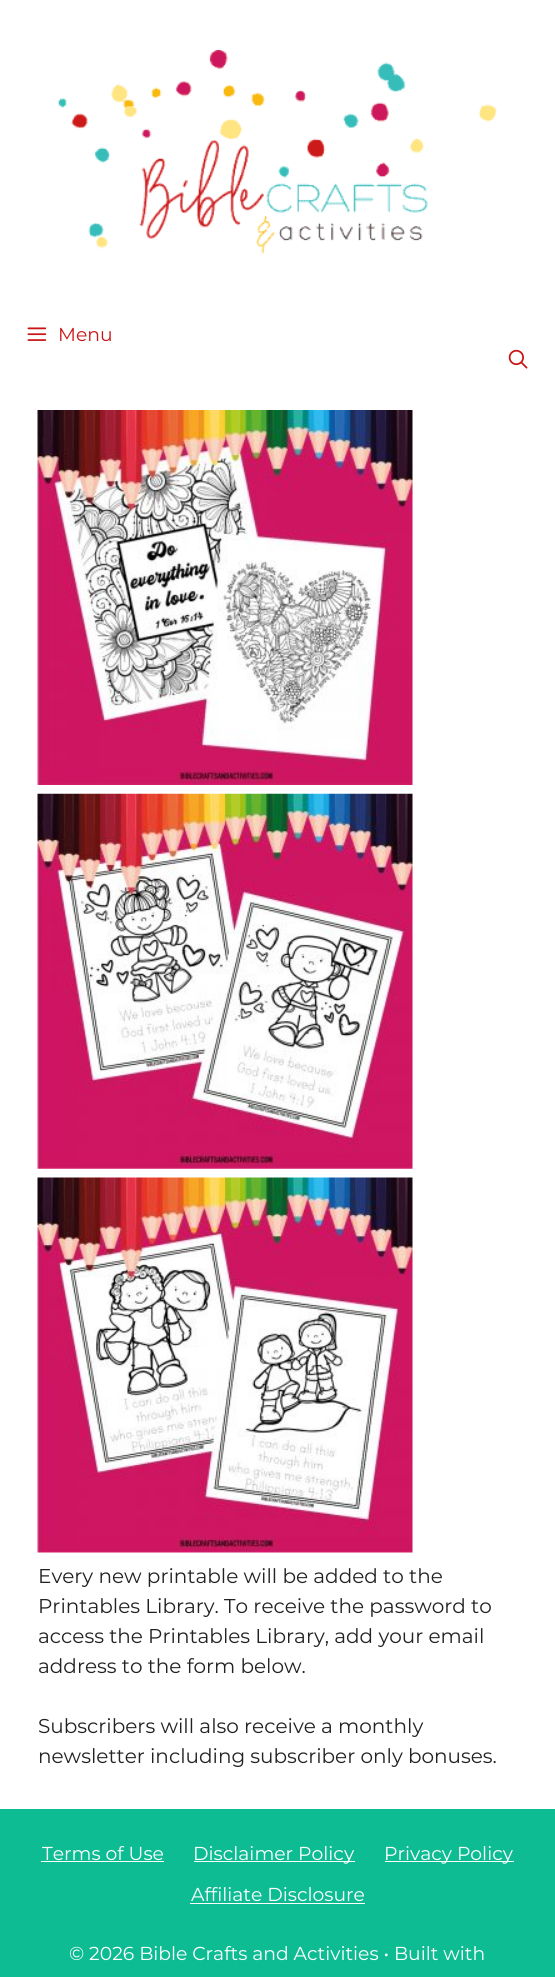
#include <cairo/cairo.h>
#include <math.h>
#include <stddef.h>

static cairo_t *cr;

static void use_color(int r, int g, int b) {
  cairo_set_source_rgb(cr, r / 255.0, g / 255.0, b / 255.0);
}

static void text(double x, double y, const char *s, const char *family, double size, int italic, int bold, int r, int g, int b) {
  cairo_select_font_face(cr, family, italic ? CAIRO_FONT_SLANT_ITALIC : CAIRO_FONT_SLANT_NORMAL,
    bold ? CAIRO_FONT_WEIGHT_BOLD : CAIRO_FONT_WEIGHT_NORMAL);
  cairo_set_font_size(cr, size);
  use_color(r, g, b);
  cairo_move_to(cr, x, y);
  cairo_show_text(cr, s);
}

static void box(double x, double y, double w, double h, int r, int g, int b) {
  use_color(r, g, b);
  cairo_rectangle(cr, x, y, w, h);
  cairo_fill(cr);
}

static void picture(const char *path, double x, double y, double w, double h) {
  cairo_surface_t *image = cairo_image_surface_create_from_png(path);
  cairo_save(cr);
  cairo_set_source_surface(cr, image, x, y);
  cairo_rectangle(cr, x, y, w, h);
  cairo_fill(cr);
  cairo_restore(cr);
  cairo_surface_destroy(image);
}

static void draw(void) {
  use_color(255, 255, 255);
  cairo_paint(cr);
  picture("img_01.png", 58, 50, 439, 204);
  picture("img_02.png", 27, 327, 20, 14);
  picture("img_03.png", 508, 349, 20, 20);
  picture("img_04.png", 37, 410, 376, 375);
  picture("img_05.png", 37, 793, 376, 376);
  picture("img_06.png", 37, 1177, 376, 376);
  box(0, 1809, 555, 168, 14, 188, 148);
  box(41, 1861, 123, 1, 255, 255, 255);
  box(194, 1861, 161, 1, 255, 255, 255);
  box(385, 1861, 129, 1, 255, 255, 255);
  box(190, 1903, 175, 1, 255, 255, 255);
  text(58, 341, "Menu", "Montserrat", 18.75, 0, 0, 200, 20, 20);
  text(38, 1583, "Every new printable will be added to the", "Montserrat", 20, 0, 0, 34, 34, 34);
  text(38, 1613, "Printables Library. To receive the password to", "Montserrat", 20, 0, 0, 34, 34, 34);
  text(38, 1643, "access the Printables Library, add your email", "Montserrat", 20, 0, 0, 34, 34, 34);
  text(38, 1673, "address to the form below.", "Montserrat", 20, 0, 0, 34, 34, 34);
  text(38, 1733, "Subscribers will also receive a monthly", "Montserrat", 20, 0, 0, 34, 34, 34);
  text(38, 1763, "newsletter including subscriber only bonuses.", "Montserrat", 20, 0, 0, 34, 34, 34);
  text(42, 1860, "Terms of Use", "Montserrat", 18.75, 0, 0, 255, 255, 255);
  text(193, 1860, "Disclaimer Policy", "Montserrat", 18.75, 0, 0, 255, 255, 255);
  text(384, 1860, "Privacy Policy", "Montserrat", 18.75, 0, 0, 255, 255, 255);
  text(191, 1901, "Affiliate Disclosure", "Montserrat", 18.75, 0, 0, 255, 255, 255);
  text(69, 1960, "© 2026 Bible Crafts and Activities • Built with", "Montserrat", 18.75, 0, 0, 255, 255, 255);
}

int main(void) {
  cairo_surface_t *surface = cairo_image_surface_create(CAIRO_FORMAT_RGB24, 555, 1977);
  cr = cairo_create(surface);
  cairo_font_options_t *options = cairo_font_options_create();
  cairo_font_options_set_hint_metrics(options, CAIRO_HINT_METRICS_OFF);
  cairo_font_options_set_hint_style(options, CAIRO_HINT_STYLE_NONE);
  cairo_set_font_options(cr, options);
  cairo_set_miter_limit(cr, 4);
  draw();
  cairo_surface_write_to_png(surface, "out.png");
  cairo_font_options_destroy(options);
  cairo_destroy(cr);
  cairo_surface_destroy(surface);
  return 0;
}
